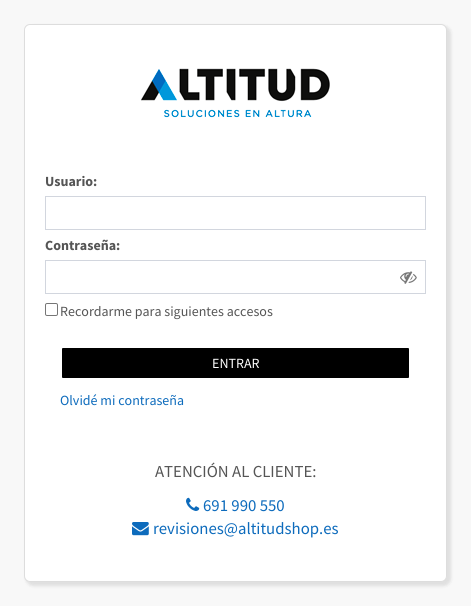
#include <cairo/cairo.h>
#include <math.h>
#include <stddef.h>

static cairo_t *cr;

static void use_color(int r, int g, int b) {
  cairo_set_source_rgb(cr, r / 255.0, g / 255.0, b / 255.0);
}

static void text(double x, double y, const char *s, const char *family, double size, int italic, int bold, int r, int g, int b) {
  cairo_select_font_face(cr, family, italic ? CAIRO_FONT_SLANT_ITALIC : CAIRO_FONT_SLANT_NORMAL,
    bold ? CAIRO_FONT_WEIGHT_BOLD : CAIRO_FONT_WEIGHT_NORMAL);
  cairo_set_font_size(cr, size);
  use_color(r, g, b);
  cairo_move_to(cr, x, y);
  cairo_show_text(cr, s);
}

static void round_rect(double x, double y, double w, double h, double r) {
  cairo_new_sub_path(cr);
  cairo_arc(cr, x + w - r, y + h - r, r, 0, M_PI / 2);
  cairo_arc(cr, x + r, y + h - r, r, M_PI / 2, M_PI);
  cairo_arc(cr, x + r, y + r, r, M_PI, 1.5 * M_PI);
  cairo_arc(cr, x + w - r, y + r, r, 1.5 * M_PI, 2 * M_PI);
  cairo_close_path(cr);
}

static void shadow(double x, double y, double w, double h, double r, double blur, double alpha) {
  cairo_push_group_with_content(cr, CAIRO_CONTENT_ALPHA);
  cairo_set_operator(cr, CAIRO_OPERATOR_SOURCE);
  for (int i = 15; i >= -15 && fmin(w, h) + blur * i / 3 > 0; i -= 2) {
    double e = blur * i / 6;
    cairo_set_source_rgba(cr, 0, 0, 0, alpha * erfc((i - 1) / 8.5) / 2);
    round_rect(x - e, y - e, w + 2 * e, h + 2 * e, fmax(0, fmin(r + e + blur * .6, fmin(w, h) / 2 + e)));
    cairo_fill(cr);
  }
  cairo_pattern_t *soft = cairo_pop_group(cr);
  cairo_mask(cr, soft);
  cairo_pattern_destroy(soft);
}

static void picture(const char *path, double x, double y, double w, double h) {
  cairo_surface_t *image = cairo_image_surface_create_from_png(path);
  cairo_save(cr);
  cairo_set_source_surface(cr, image, x, y);
  cairo_rectangle(cr, x, y, w, h);
  cairo_fill(cr);
  cairo_restore(cr);
  cairo_surface_destroy(image);
}

static void draw(void) {
  use_color(248, 248, 248);
  cairo_paint(cr);
  use_color(0, 0, 0);
  shadow(26, 26, 425, 560, 7, 1.5, 0.1);
  use_color(255, 255, 255);
  round_rect(24.5, 24.5, 422, 557, 5.5);
  cairo_fill_preserve(cr);
  use_color(221, 221, 221);
  cairo_set_line_width(cr, 1);
  cairo_stroke(cr);
  picture("img_01.png", 141, 68, 189, 50);
  cairo_rectangle(cr, 45.5, 196.5, 380, 33);
  use_color(210, 214, 222);
  cairo_stroke(cr);
  cairo_rectangle(cr, 45.5, 260.5, 380, 33);
  cairo_stroke(cr);
  picture("img_02.png", 400, 271, 17, 13);
  round_rect(45.5, 303.5, 12, 12, 1.5);
  use_color(118, 118, 118);
  cairo_stroke(cr);
  use_color(0, 0, 0);
  round_rect(61, 347, 349, 32, 2);
  cairo_fill_preserve(cr);
  use_color(255, 255, 255);
  cairo_set_line_width(cr, 2);
  cairo_stroke(cr);
  picture("img_03.png", 186, 497, 14, 14);
  picture("img_04.png", 132, 522, 17, 14);
  text(45, 186, "Usuario:", "Source Sans Pro", 14, 0, 1, 85, 85, 85);
  text(45, 250, "Contraseña:", "Source Sans Pro", 14, 0, 1, 85, 85, 85);
  text(60, 316, "Recordarme para siguientes accesos", "Source Sans Pro", 14, 0, 0, 85, 85, 85);
  text(212, 368, "ENTRAR", "Source Sans Pro", 14, 0, 0, 255, 255, 255);
  text(60, 405, "Olvidé mi contraseña", "Source Sans Pro", 14, 0, 0, 13, 107, 188);
  text(155, 477, "ATENCIÓN AL CLIENTE:", "Source Sans Pro", 16.75, 0, 0, 85, 85, 85);
  text(203, 511, "691 990 550", "Source Sans Pro", 16.75, 0, 0, 13, 107, 188);
  text(153, 534, "revisiones@altitudshop.es", "Source Sans Pro", 16.75, 0, 0, 13, 107, 188);
}

int main(void) {
  cairo_surface_t *surface = cairo_image_surface_create(CAIRO_FORMAT_RGB24, 471, 606);
  cr = cairo_create(surface);
  cairo_font_options_t *options = cairo_font_options_create();
  cairo_font_options_set_hint_metrics(options, CAIRO_HINT_METRICS_OFF);
  cairo_font_options_set_hint_style(options, CAIRO_HINT_STYLE_NONE);
  cairo_set_font_options(cr, options);
  cairo_set_miter_limit(cr, 4);
  draw();
  cairo_surface_write_to_png(surface, "out.png");
  cairo_font_options_destroy(options);
  cairo_destroy(cr);
  cairo_surface_destroy(surface);
  return 0;
}
